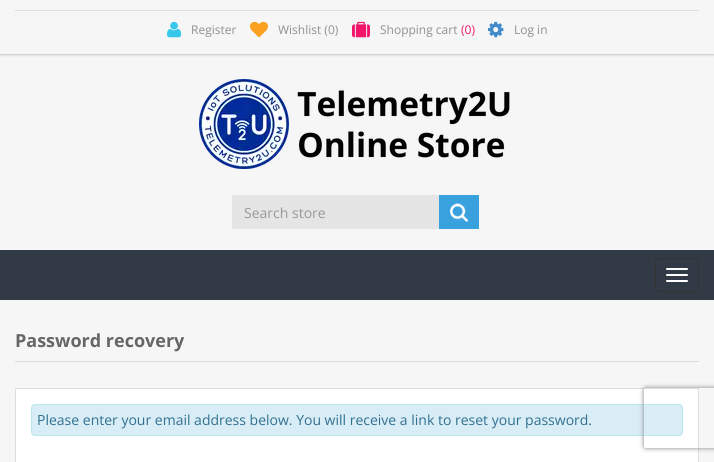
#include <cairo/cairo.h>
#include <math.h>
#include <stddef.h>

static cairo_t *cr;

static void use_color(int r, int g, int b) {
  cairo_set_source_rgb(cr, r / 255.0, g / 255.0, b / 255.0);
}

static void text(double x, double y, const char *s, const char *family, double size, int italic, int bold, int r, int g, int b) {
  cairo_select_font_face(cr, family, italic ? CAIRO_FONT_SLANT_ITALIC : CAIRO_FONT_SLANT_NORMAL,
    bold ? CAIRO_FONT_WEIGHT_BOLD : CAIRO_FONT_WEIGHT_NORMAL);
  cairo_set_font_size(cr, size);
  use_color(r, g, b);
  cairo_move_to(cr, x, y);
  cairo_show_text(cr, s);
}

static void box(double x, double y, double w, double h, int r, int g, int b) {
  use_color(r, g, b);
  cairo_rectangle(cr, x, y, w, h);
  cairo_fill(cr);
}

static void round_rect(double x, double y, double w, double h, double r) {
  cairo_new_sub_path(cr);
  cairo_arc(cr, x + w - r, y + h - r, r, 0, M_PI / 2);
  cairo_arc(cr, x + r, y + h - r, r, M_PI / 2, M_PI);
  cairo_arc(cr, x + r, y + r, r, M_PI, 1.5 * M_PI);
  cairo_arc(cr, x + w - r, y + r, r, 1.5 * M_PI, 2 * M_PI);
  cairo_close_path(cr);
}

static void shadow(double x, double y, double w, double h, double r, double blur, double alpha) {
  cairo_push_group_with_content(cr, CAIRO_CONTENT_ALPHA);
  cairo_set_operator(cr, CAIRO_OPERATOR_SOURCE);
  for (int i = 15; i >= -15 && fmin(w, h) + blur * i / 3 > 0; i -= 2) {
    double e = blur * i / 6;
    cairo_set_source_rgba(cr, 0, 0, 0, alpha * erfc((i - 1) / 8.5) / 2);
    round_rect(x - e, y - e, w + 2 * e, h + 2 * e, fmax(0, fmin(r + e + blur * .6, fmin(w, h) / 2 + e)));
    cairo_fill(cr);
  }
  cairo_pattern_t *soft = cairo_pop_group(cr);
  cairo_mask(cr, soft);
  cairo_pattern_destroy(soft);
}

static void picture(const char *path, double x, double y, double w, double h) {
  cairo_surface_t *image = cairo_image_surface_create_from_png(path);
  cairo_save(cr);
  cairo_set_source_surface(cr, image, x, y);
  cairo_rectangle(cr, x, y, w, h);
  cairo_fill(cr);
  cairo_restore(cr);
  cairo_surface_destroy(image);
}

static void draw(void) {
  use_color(246, 246, 246);
  cairo_paint(cr);
  cairo_save(cr);
  cairo_rectangle(cr, 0, 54, 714, 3);
  cairo_clip(cr);
  use_color(153, 153, 153);
  shadow(0, 0, 714, 54, 0, 1.5, 1);
  cairo_restore(cr);
  box(15, 10, 684, 1, 221, 221, 221);
  picture("img_01.png", 167, 21, 15, 17);
  picture("img_02.png", 250, 21, 18, 17);
  picture("img_03.png", 352, 21, 18, 17);
  picture("img_04.png", 488, 21, 16, 17);
  picture("img_05.png", 199, 79, 311, 90);
  box(232, 195, 207, 34, 229, 229, 229);
  box(439, 195, 40, 34, 58, 161, 223);
  picture("img_06.png", 450, 203, 18, 19);
  box(0, 250, 714, 50, 50, 58, 69);
  round_rect(655.5, 258.5, 43, 33, 3.5);
  use_color(51, 51, 51);
  cairo_set_line_width(cr, 1);
  cairo_stroke(cr);
  use_color(255, 255, 255);
  round_rect(666, 268, 22, 2, 1);
  cairo_fill(cr);
  round_rect(666, 274, 22, 2, 1);
  cairo_fill(cr);
  round_rect(666, 280, 22, 2, 1);
  cairo_fill(cr);
  box(15, 361, 684, 1, 221, 221, 221);
  use_color(255, 255, 255);
  cairo_rectangle(cr, 15.5, 388.5, 683, 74);
  cairo_fill_preserve(cr);
  use_color(221, 221, 221);
  cairo_stroke(cr);
  use_color(217, 237, 247);
  round_rect(31.5, 404.5, 651, 31, 3.5);
  cairo_fill_preserve(cr);
  use_color(188, 232, 241);
  cairo_stroke(cr);
  cairo_save(cr);
  cairo_set_fill_rule(cr, CAIRO_FILL_RULE_EVEN_ODD);
  cairo_new_path(cr);
  cairo_move_to(cr, 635, 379);
  cairo_line_to(cr, 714, 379);
  cairo_line_to(cr, 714, 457);
  cairo_line_to(cr, 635, 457);
  cairo_close_path(cr);
  cairo_move_to(cr, 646, 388);
  cairo_line_to(cr, 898, 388);
  cairo_curve_to(cr, 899, 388, 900, 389, 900, 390);
  cairo_line_to(cr, 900, 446);
  cairo_curve_to(cr, 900, 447, 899, 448, 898, 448);
  cairo_line_to(cr, 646, 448);
  cairo_curve_to(cr, 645, 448, 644, 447, 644, 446);
  cairo_line_to(cr, 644, 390);
  cairo_curve_to(cr, 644, 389, 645, 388, 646, 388);
  cairo_close_path(cr);
  cairo_clip(cr);
  use_color(128, 128, 128);
  shadow(644, 388, 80, 60, 2, 2.5, 1);
  cairo_restore(cr);
  text(191, 34, "Register", "Open Sans", 12, 0, 0, 144, 144, 144);
  text(278, 34, "Wishlist (0)", "Open Sans", 12, 0, 0, 144, 144, 144);
  text(380, 34, "Shopping cart", "Open Sans", 12, 0, 0, 144, 144, 144);
  text(461, 34, "(0)", "Open Sans", 12, 0, 0, 241, 21, 108);
  text(514, 34, "Log in", "Open Sans", 12, 0, 0, 144, 144, 144);
  text(244, 218, "Search store", "Open Sans", 14, 0, 0, 153, 153, 153);
  text(15, 347, "Password recovery", "Open Sans", 18, 0, 1, 102, 102, 102);
  text(37, 425, "Please enter your email address below. You will receive a link to reset your password.", "Open Sans", 14, 0, 0, 49, 112, 143);
}

int main(void) {
  cairo_surface_t *surface = cairo_image_surface_create(CAIRO_FORMAT_RGB24, 714, 462);
  cr = cairo_create(surface);
  cairo_font_options_t *options = cairo_font_options_create();
  cairo_font_options_set_hint_metrics(options, CAIRO_HINT_METRICS_OFF);
  cairo_font_options_set_hint_style(options, CAIRO_HINT_STYLE_NONE);
  cairo_set_font_options(cr, options);
  cairo_set_miter_limit(cr, 4);
  draw();
  cairo_surface_write_to_png(surface, "out.png");
  cairo_font_options_destroy(options);
  cairo_destroy(cr);
  cairo_surface_destroy(surface);
  return 0;
}
